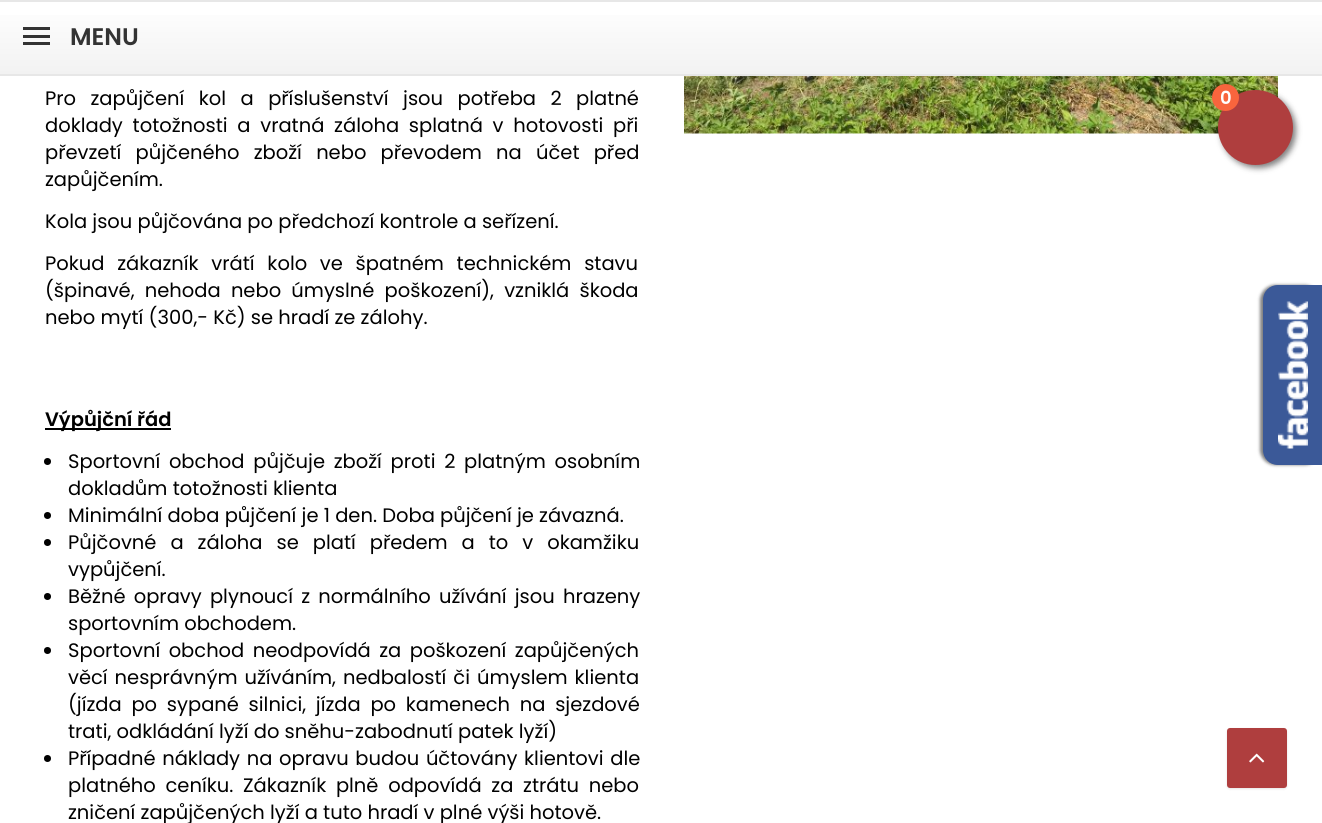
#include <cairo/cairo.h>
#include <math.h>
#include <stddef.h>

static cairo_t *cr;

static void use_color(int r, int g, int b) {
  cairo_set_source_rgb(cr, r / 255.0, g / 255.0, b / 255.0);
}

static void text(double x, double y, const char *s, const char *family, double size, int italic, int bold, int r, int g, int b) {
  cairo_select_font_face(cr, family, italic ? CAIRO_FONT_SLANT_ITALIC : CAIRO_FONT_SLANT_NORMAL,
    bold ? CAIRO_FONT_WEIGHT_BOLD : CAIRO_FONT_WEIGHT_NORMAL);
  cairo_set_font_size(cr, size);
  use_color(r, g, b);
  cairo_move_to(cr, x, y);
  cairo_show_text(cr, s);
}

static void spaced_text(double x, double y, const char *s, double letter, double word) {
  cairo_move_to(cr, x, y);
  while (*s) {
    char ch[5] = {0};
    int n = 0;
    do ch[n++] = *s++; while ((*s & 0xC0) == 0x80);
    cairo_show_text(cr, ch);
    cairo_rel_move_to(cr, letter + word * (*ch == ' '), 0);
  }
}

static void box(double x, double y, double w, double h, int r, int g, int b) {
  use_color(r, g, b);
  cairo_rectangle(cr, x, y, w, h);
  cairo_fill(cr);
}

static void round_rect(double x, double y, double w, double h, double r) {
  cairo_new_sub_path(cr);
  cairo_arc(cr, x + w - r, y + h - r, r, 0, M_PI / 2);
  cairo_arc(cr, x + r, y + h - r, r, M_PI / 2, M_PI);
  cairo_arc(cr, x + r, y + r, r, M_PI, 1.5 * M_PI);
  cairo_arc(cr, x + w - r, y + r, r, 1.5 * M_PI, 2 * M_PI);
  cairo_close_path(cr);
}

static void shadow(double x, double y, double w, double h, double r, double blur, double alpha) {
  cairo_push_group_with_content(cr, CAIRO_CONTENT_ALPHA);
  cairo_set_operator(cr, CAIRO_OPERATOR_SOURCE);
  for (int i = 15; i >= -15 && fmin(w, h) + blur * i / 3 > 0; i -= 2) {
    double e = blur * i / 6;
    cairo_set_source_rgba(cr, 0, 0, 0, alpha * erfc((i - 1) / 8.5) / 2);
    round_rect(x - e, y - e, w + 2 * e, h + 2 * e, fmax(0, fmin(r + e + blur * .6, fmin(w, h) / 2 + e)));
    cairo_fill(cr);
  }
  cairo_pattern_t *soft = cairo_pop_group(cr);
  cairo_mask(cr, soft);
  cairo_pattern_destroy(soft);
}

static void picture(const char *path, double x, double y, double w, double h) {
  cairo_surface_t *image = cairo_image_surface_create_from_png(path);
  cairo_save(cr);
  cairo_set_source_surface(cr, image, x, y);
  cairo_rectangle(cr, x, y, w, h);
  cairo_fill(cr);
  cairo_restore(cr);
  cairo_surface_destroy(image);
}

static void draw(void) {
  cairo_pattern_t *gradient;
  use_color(255, 255, 255);
  cairo_paint(cr);
  gradient = cairo_pattern_create_linear(662, 1.5, 662, 74);
  cairo_pattern_add_color_stop_rgba(gradient, 0, 1, 1, 1, 1);
  cairo_pattern_add_color_stop_rgba(gradient, 1, 0.949, 0.949, 0.949, 1);
  cairo_set_source(cr, gradient);
  cairo_pattern_destroy(gradient);
  cairo_rectangle(cr, 0, 15, 1322, 59);
  cairo_fill(cr);
  box(0, 0, 1322, 2, 231, 231, 231);
  box(0, 74, 1322, 2, 231, 231, 231);
  box(23, 27, 27, 3, 51, 51, 51);
  box(23, 35, 27, 3, 51, 51, 51);
  box(23, 42, 27, 3, 51, 51, 51);
  picture("img_01.png", 684, 76, 594, 58);
  use_color(0, 0, 0);
  shadow(1221, 93, 75, 75, 37.5, 3, 0.5);
  use_color(175, 62, 62);
  cairo_arc(cr, 1255.5, 127.5, 37.5, 0, 2 * M_PI);
  cairo_fill(cr);
  use_color(248, 101, 61);
  cairo_arc(cr, 1225.5, 97.5, 13.5, 0, 2 * M_PI);
  cairo_fill(cr);
  box(45, 428, 126, 2, 0, 0, 0);
  cairo_arc(cr, 47.5, 461.5, 3.5, 0, 2 * M_PI);
  cairo_fill(cr);
  cairo_arc(cr, 47.5, 515.5, 3.5, 0, 2 * M_PI);
  cairo_fill(cr);
  cairo_arc(cr, 47.5, 542.5, 3.5, 0, 2 * M_PI);
  cairo_fill(cr);
  cairo_arc(cr, 47.5, 596.5, 3.5, 0, 2 * M_PI);
  cairo_fill(cr);
  cairo_arc(cr, 47.5, 650.5, 3.5, 0, 2 * M_PI);
  cairo_fill(cr);
  cairo_arc(cr, 47.5, 758.5, 3.5, 0, 2 * M_PI);
  cairo_fill(cr);
  use_color(0, 0, 0);
  shadow(1260, 285, 60, 180, 15, 1.5, 0.5);
  use_color(59, 89, 152);
  cairo_new_path(cr);
  cairo_move_to(cr, 1278, 285);
  cairo_line_to(cr, 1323, 285);
  cairo_line_to(cr, 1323, 465);
  cairo_line_to(cr, 1278, 465);
  cairo_curve_to(cr, 1269.5, 465, 1263, 458.5, 1263, 450);
  cairo_line_to(cr, 1263, 300);
  cairo_curve_to(cr, 1263, 291.5, 1269.5, 285, 1278, 285);
  cairo_close_path(cr);
  cairo_fill(cr);
  picture("img_02.png", 1278, 301, 30, 148);
  use_color(0, 0, 0);
  shadow(1227, 729, 60, 60, 3, 1, 0.1);
  use_color(175, 62, 62);
  round_rect(1227, 728, 60, 60, 3);
  cairo_fill(cr);
  picture("img_03.png", 1249, 753, 16, 10);
  text(70, 45, "MENU", "Poppins SemiBold", 24, 0, 0, 51, 51, 51);
  text(1220, 104, "0", "Poppins SemiBold", 18, 0, 0, 255, 255, 255);
  cairo_select_font_face(cr, "Poppins", CAIRO_FONT_SLANT_NORMAL, CAIRO_FONT_WEIGHT_NORMAL);
  cairo_set_font_size(cr, 19.5);
  use_color(0, 0, 0);
  spaced_text(45, 105, "Pro zapůjčení kol a příslušenství jsou potřeba 2 platné", 0, 9.25);
  spaced_text(45, 132, "doklady totožnosti a vratná záloha splatná v hotovosti při", 0, 4.5);
  spaced_text(45, 159, "převzetí půjčeného zboží nebo převodem na účet před", 0, 9);
  text(45, 186, "zapůjčením.", "Poppins", 19.5, 0, 0, 0, 0, 0);
  text(45, 228, "Kola jsou půjčována po předchozí kontrole a seřízení.", "Poppins", 19.5, 0, 0, 0, 0, 0);
  spaced_text(45, 270, "Pokud zákazník vrátí kolo ve špatném technickém stavu", 0, 7.5);
  spaced_text(45, 297, "(špinavé, nehoda nebo úmyslné poškození), vzniklá škoda", 0, 5);
  text(45, 324, "nebo mytí (300,- Kč) se hradí ze zálohy.", "Poppins", 19.5, 0, 0, 0, 0, 0);
  text(45, 426, "Výpůjční řád", "Poppins SemiBold", 19.5, 0, 0, 0, 0, 0);
  cairo_select_font_face(cr, "Poppins", CAIRO_FONT_SLANT_NORMAL, CAIRO_FONT_WEIGHT_NORMAL);
  spaced_text(68, 468, "Sportovní obchod půjčuje zboží proti 2 platným osobním", 0, 3.5);
  text(68, 495, "dokladům totožnosti klienta", "Poppins", 19.5, 0, 0, 0, 0, 0);
  text(68, 522, "Minimální doba půjčení je 1 den. Doba půjčení je závazná.", "Poppins", 19.5, 0, 0, 0, 0, 0);
  spaced_text(68, 549, "Půjčovné a záloha se platí předem a to v okamžiku", 0, 8.75);
  text(68, 576, "vypůjčení.", "Poppins", 19.5, 0, 0, 0, 0, 0);
  spaced_text(68, 603, "Běžné opravy plynoucí z normálního užívání jsou hrazeny", 0, 3);
  text(68, 630, "sportovním obchodem.", "Poppins", 19.5, 0, 0, 0, 0, 0);
  spaced_text(68, 657, "Sportovní obchod neodpovídá za poškození zapůjčených", 0, 3.25);
  spaced_text(68, 684, "věcí nesprávným užíváním, nedbalostí či úmyslem klienta", 0, 1.75);
  spaced_text(68, 711, "(jízda po sypané silnici, jízda po kamenech na sjezdové", 0, 4.5);
  text(68, 738, "trati, odkládání lyží do sněhu-zabodnutí patek lyží)", "Poppins", 19.5, 0, 0, 0, 0, 0);
  spaced_text(68, 765, "Případné náklady na opravu budou účtovány klientovi dle", 0, 1.5);
  spaced_text(68, 792, "platného ceníku. Zákazník plně odpovídá za ztrátu nebo", 0, 4.5);
  text(68, 819, "zničení zapůjčených lyží a tuto hradí v plné výši hotově.", "Poppins", 19.5, 0, 0, 0, 0, 0);
}

int main(void) {
  cairo_surface_t *surface = cairo_image_surface_create(CAIRO_FORMAT_RGB24, 1322, 823);
  cr = cairo_create(surface);
  cairo_font_options_t *options = cairo_font_options_create();
  cairo_font_options_set_hint_metrics(options, CAIRO_HINT_METRICS_OFF);
  cairo_font_options_set_hint_style(options, CAIRO_HINT_STYLE_NONE);
  cairo_set_font_options(cr, options);
  cairo_set_miter_limit(cr, 4);
  draw();
  cairo_surface_write_to_png(surface, "out.png");
  cairo_font_options_destroy(options);
  cairo_destroy(cr);
  cairo_surface_destroy(surface);
  return 0;
}
